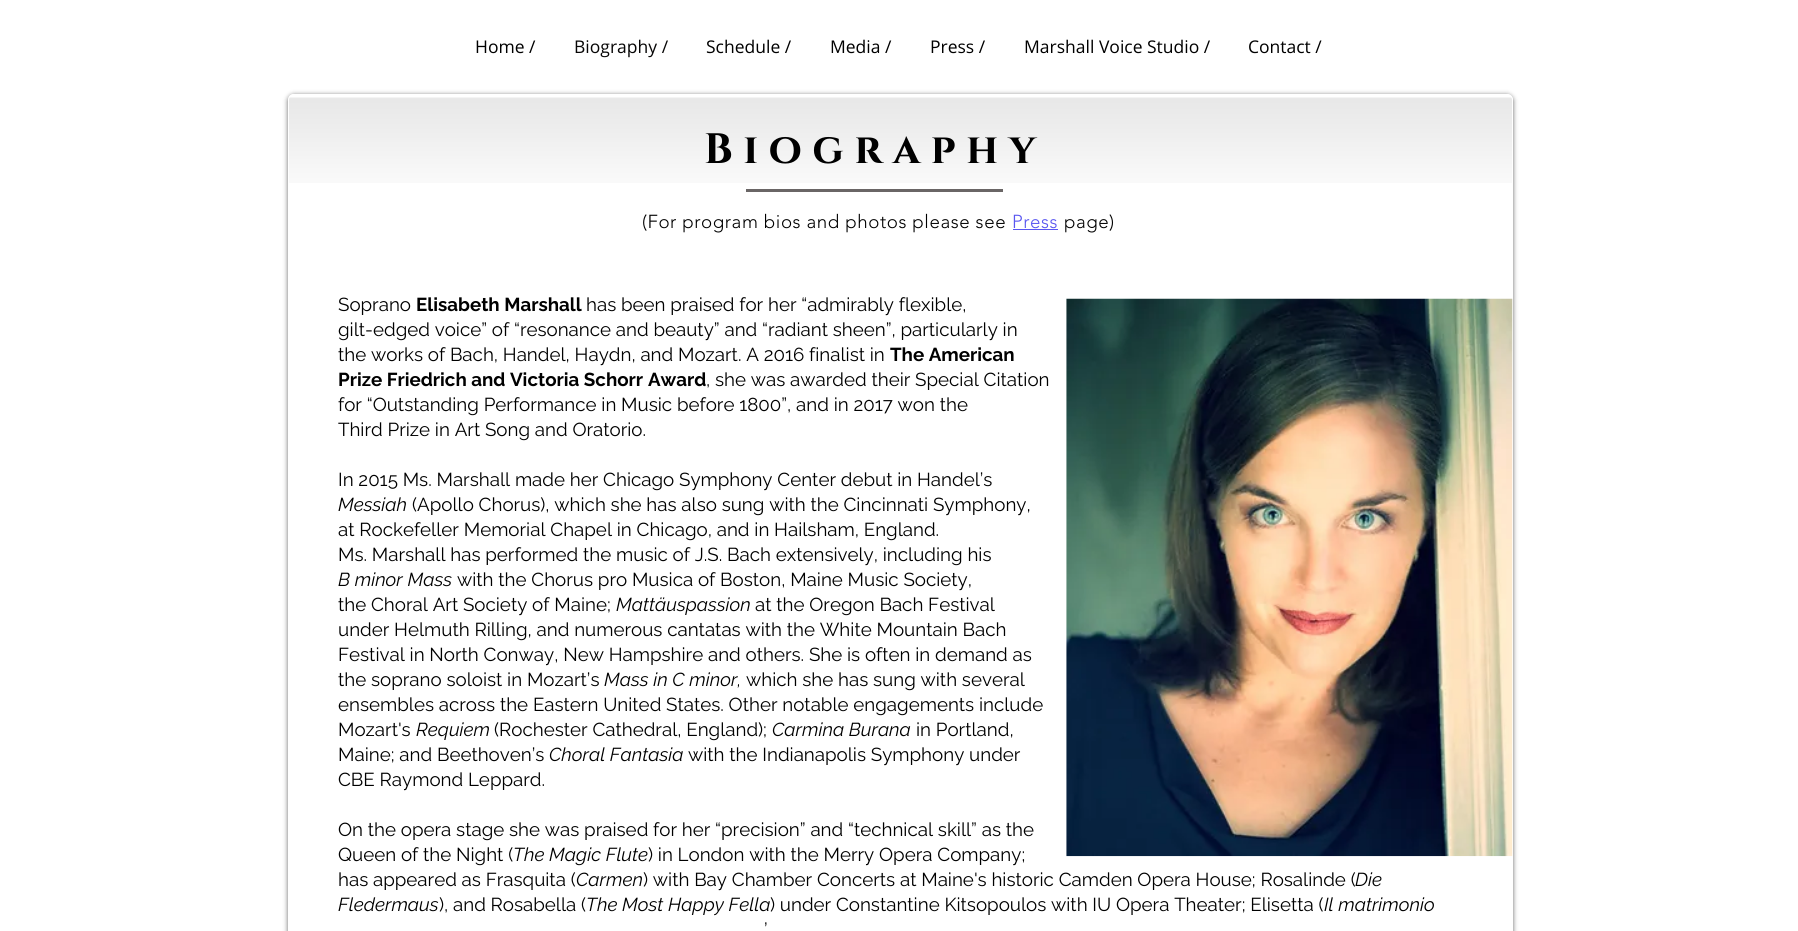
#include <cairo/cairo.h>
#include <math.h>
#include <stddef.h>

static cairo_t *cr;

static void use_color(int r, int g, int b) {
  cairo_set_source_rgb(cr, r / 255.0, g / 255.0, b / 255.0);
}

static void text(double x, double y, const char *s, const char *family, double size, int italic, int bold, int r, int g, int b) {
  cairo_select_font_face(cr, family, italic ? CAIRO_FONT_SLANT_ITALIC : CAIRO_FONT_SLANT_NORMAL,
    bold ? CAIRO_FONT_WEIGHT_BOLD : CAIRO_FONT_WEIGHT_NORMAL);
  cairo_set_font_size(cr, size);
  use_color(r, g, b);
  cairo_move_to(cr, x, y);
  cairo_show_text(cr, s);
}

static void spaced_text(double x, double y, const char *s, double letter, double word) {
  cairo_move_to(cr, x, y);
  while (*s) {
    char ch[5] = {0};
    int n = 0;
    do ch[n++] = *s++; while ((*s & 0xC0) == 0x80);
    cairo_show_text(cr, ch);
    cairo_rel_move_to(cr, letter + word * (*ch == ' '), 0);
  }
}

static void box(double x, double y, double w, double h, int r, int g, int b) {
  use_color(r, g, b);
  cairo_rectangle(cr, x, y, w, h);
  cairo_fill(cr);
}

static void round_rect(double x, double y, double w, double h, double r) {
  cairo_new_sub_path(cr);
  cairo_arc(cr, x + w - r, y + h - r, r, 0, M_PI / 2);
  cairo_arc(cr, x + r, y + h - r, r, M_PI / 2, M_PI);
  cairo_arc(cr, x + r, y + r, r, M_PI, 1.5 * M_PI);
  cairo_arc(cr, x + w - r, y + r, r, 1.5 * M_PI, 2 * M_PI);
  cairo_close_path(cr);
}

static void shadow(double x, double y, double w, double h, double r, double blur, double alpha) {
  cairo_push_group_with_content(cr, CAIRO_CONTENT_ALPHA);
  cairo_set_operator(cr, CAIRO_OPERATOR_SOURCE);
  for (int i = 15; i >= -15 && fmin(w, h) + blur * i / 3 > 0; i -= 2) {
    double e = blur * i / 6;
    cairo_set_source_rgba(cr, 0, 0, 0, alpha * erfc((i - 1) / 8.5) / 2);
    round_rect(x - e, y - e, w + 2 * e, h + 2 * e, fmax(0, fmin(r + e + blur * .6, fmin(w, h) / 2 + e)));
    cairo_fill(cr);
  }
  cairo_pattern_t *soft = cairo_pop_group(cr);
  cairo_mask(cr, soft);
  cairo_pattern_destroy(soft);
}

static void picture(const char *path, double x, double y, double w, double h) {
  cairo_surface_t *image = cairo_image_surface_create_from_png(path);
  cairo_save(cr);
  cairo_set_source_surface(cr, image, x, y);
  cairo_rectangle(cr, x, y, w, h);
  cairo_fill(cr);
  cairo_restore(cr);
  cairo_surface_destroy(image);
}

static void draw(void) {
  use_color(255, 255, 255);
  cairo_paint(cr);
  use_color(0, 0, 0);
  shadow(288, 95, 1225, 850, 6, 2.5, 0.6);
  use_color(255, 255, 255);
  round_rect(288, 94, 1225, 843, 6);
  cairo_fill(cr);
  picture("img_01.png", 288, 97, 1224, 86);
  round_rect(288.5, 94.5, 1224, 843, 5.5);
  cairo_set_line_width(cr, 1);
  cairo_stroke(cr);
  box(746, 189, 257, 3, 106, 102, 102);
  box(1013, 229, 45, 1, 89, 86, 240);
  picture("img_02.png", 1066, 298, 447, 559);
  text(475, 53, "Home /", "Open Sans", 17.5, 0, 0, 0, 0, 0);
  text(574, 53, "Biography /", "Open Sans", 17.5, 0, 0, 7, 6, 6);
  text(706, 53, "Schedule /", "Open Sans", 17.5, 0, 0, 0, 0, 0);
  text(830, 53, "Media /", "Open Sans", 17.5, 0, 0, 0, 0, 0);
  text(930, 53, "Press /", "Open Sans", 17.5, 0, 0, 0, 0, 0);
  text(1024, 53, "Marshall Voice Studio /", "Open Sans", 17.5, 0, 0, 0, 0, 0);
  text(1248, 53, "Contact /", "Open Sans", 17.5, 0, 0, 0, 0, 0);
  text(704, 163, "B i o g r a p h y", "Cinzel", 42.5, 0, 1, 0, 0, 0);
  cairo_select_font_face(cr, "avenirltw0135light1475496 Light", CAIRO_FONT_SLANT_NORMAL, CAIRO_FONT_WEIGHT_NORMAL);
  cairo_set_font_size(cr, 18.75);
  spaced_text(642, 228, "(For program bios and photos please see", 0.55, 0);
  use_color(89, 86, 240);
  spaced_text(1012, 228, "Press", 0.55, 0);
  use_color(0, 0, 0);
  spaced_text(1064, 228, "page)", 0.55, 0);
  text(338, 311, "Soprano", "Raleway", 18.75, 0, 0, 0, 0, 0);
  text(416, 311, "Elisabeth Marshall", "Raleway", 18.75, 0, 1, 0, 0, 0);
  text(586, 311, "has been praised for her “admirably flexible,", "Raleway", 18.75, 0, 0, 0, 0, 0);
  text(338, 336, "gilt-edged voice” of “resonance and beauty” and “radiant sheen”, particularly in", "Raleway", 18.75, 0, 0, 0, 0, 0);
  text(338, 361, "the works of Bach, Handel, Haydn, and Mozart. A 2016 finalist in", "Raleway", 18.75, 0, 0, 0, 0, 0);
  text(890, 361, "The American", "Raleway", 18.75, 0, 1, 0, 0, 0);
  text(338, 386, "Prize Friedrich and Victoria Schorr", "Raleway", 18.75, 0, 1, 0, 0, 0);
  text(648, 386, "Award", "Raleway", 18.75, 0, 1, 0, 0, 0);
  text(706, 386, ", she was awarded their Special Citation", "Raleway", 18.75, 0, 0, 0, 0, 0);
  text(338, 411, "for “Outstanding Performance in Music before 1800”, and in 2017 won the", "Raleway", 18.75, 0, 0, 0, 0, 0);
  text(338, 436, "Third Prize in Art Song and Oratorio.", "Raleway", 18.75, 0, 0, 0, 0, 0);
  text(338, 486, "In 2015 Ms. Marshall made her Chicago Symphony Center debut in Handel’s", "Raleway", 18.75, 0, 0, 0, 0, 0);
  text(338, 511, "Messiah", "Raleway", 18.75, 1, 0, 0, 0, 0);
  text(412, 511, "(Apollo Chorus), which she has also sung with the Cincinnati Symphony,", "Raleway", 18.75, 0, 0, 0, 0, 0);
  text(338, 536, "at Rockefeller Memorial Chapel in Chicago, and in Hailsham, England.", "Raleway", 18.75, 0, 0, 0, 0, 0);
  text(338, 561, "Ms. Marshall has performed the music of J.S. Bach extensively, including his", "Raleway", 18.75, 0, 0, 0, 0, 0);
  text(338, 586, "B minor Mass", "Raleway", 18.75, 1, 0, 0, 0, 0);
  text(457, 586, "with the Chorus pro Musica of Boston, Maine Music Society,", "Raleway", 18.75, 0, 0, 0, 0, 0);
  text(338, 611, "the Choral Art Society of Maine;", "Raleway", 18.75, 0, 0, 0, 0, 0);
  text(616, 611, "Mattäuspassion", "Raleway", 18.75, 1, 0, 0, 0, 0);
  text(755, 611, "at the Oregon Bach Festival", "Raleway", 18.75, 0, 0, 0, 0, 0);
  text(338, 636, "under Helmuth Rilling, and numerous cantatas with the White Mountain Bach", "Raleway", 18.75, 0, 0, 0, 0, 0);
  text(338, 661, "Festival in North Conway, New Hampshire and others. She is often in demand as", "Raleway", 18.75, 0, 0, 0, 0, 0);
  text(338, 686, "the soprano soloist in Mozart’s", "Raleway", 18.75, 0, 0, 0, 0, 0);
  text(604, 686, "Mass in C minor,", "Raleway", 18.75, 1, 0, 0, 0, 0);
  text(746, 686, "which she has sung with several", "Raleway", 18.75, 0, 0, 0, 0, 0);
  text(338, 711, "ensembles across the Eastern United States. Other notable engagements include", "Raleway", 18.75, 0, 0, 0, 0, 0);
  text(338, 736, "Mozart's", "Raleway", 18.75, 0, 0, 0, 0, 0);
  text(416, 736, "Requiem", "Raleway", 18.75, 1, 0, 0, 0, 0);
  text(494, 736, "(Rochester Cathedral, England);", "Raleway", 18.75, 0, 0, 0, 0, 0);
  text(772, 736, "Carmina Burana", "Raleway", 18.75, 1, 0, 0, 0, 0);
  text(916, 736, "in Portland,", "Raleway", 18.75, 0, 0, 0, 0, 0);
  text(338, 761, "Maine; and Beethoven’s", "Raleway", 18.75, 0, 0, 0, 0, 0);
  text(549, 761, "Choral Fantasia", "Raleway", 18.75, 1, 0, 0, 0, 0);
  text(688, 761, "with the Indianapolis Symphony under", "Raleway", 18.75, 0, 0, 0, 0, 0);
  text(338, 786, "CBE Raymond Leppard.", "Raleway", 18.75, 0, 0, 0, 0, 0);
  text(338, 836, "On the opera stage she was praised for her “precision” and “technical skill” as the", "Raleway", 18.75, 0, 0, 0, 0, 0);
  text(338, 861, "Queen of the Night (", "Raleway", 18.75, 0, 0, 0, 0, 0);
  text(513, 861, "The Magic Flute", "Raleway", 18.75, 1, 0, 0, 0, 0);
  text(648, 861, ") in London with the Merry Opera Company;", "Raleway", 18.75, 0, 0, 0, 0, 0);
  text(338, 886, "has appeared as Frasquita (", "Raleway", 18.75, 0, 0, 0, 0, 0);
  text(576, 886, "Carmen", "Raleway", 18.75, 1, 0, 0, 0, 0);
  text(643, 886, ") with Bay Chamber Concerts at Maine's historic Camden Opera House; Rosalinde (", "Raleway", 18.75, 0, 0, 0, 0, 0);
  text(1355, 886, "Die", "Raleway", 18.75, 1, 0, 0, 0, 0);
  text(338, 911, "Fledermaus", "Raleway", 18.75, 1, 0, 0, 0, 0);
  text(439, 911, "), and Rosabella (", "Raleway", 18.75, 0, 0, 0, 0, 0);
  text(586, 911, "The Most Happy Fella", "Raleway", 18.75, 1, 0, 0, 0, 0);
  text(770, 911, ") under Constantine Kitsopoulos with IU Opera Theater; Elisetta (", "Raleway", 18.75, 0, 0, 0, 0, 0);
  text(1324, 911, "Il matrimonio", "Raleway", 18.75, 1, 0, 0, 0, 0);
  text(764, 936, "’", "Raleway", 18.75, 0, 0, 0, 0, 0);
}

int main(void) {
  cairo_surface_t *surface = cairo_image_surface_create(CAIRO_FORMAT_RGB24, 1798, 931);
  cr = cairo_create(surface);
  cairo_font_options_t *options = cairo_font_options_create();
  cairo_font_options_set_hint_metrics(options, CAIRO_HINT_METRICS_OFF);
  cairo_font_options_set_hint_style(options, CAIRO_HINT_STYLE_NONE);
  cairo_set_font_options(cr, options);
  cairo_set_miter_limit(cr, 4);
  draw();
  cairo_surface_write_to_png(surface, "out.png");
  cairo_font_options_destroy(options);
  cairo_destroy(cr);
  cairo_surface_destroy(surface);
  return 0;
}
